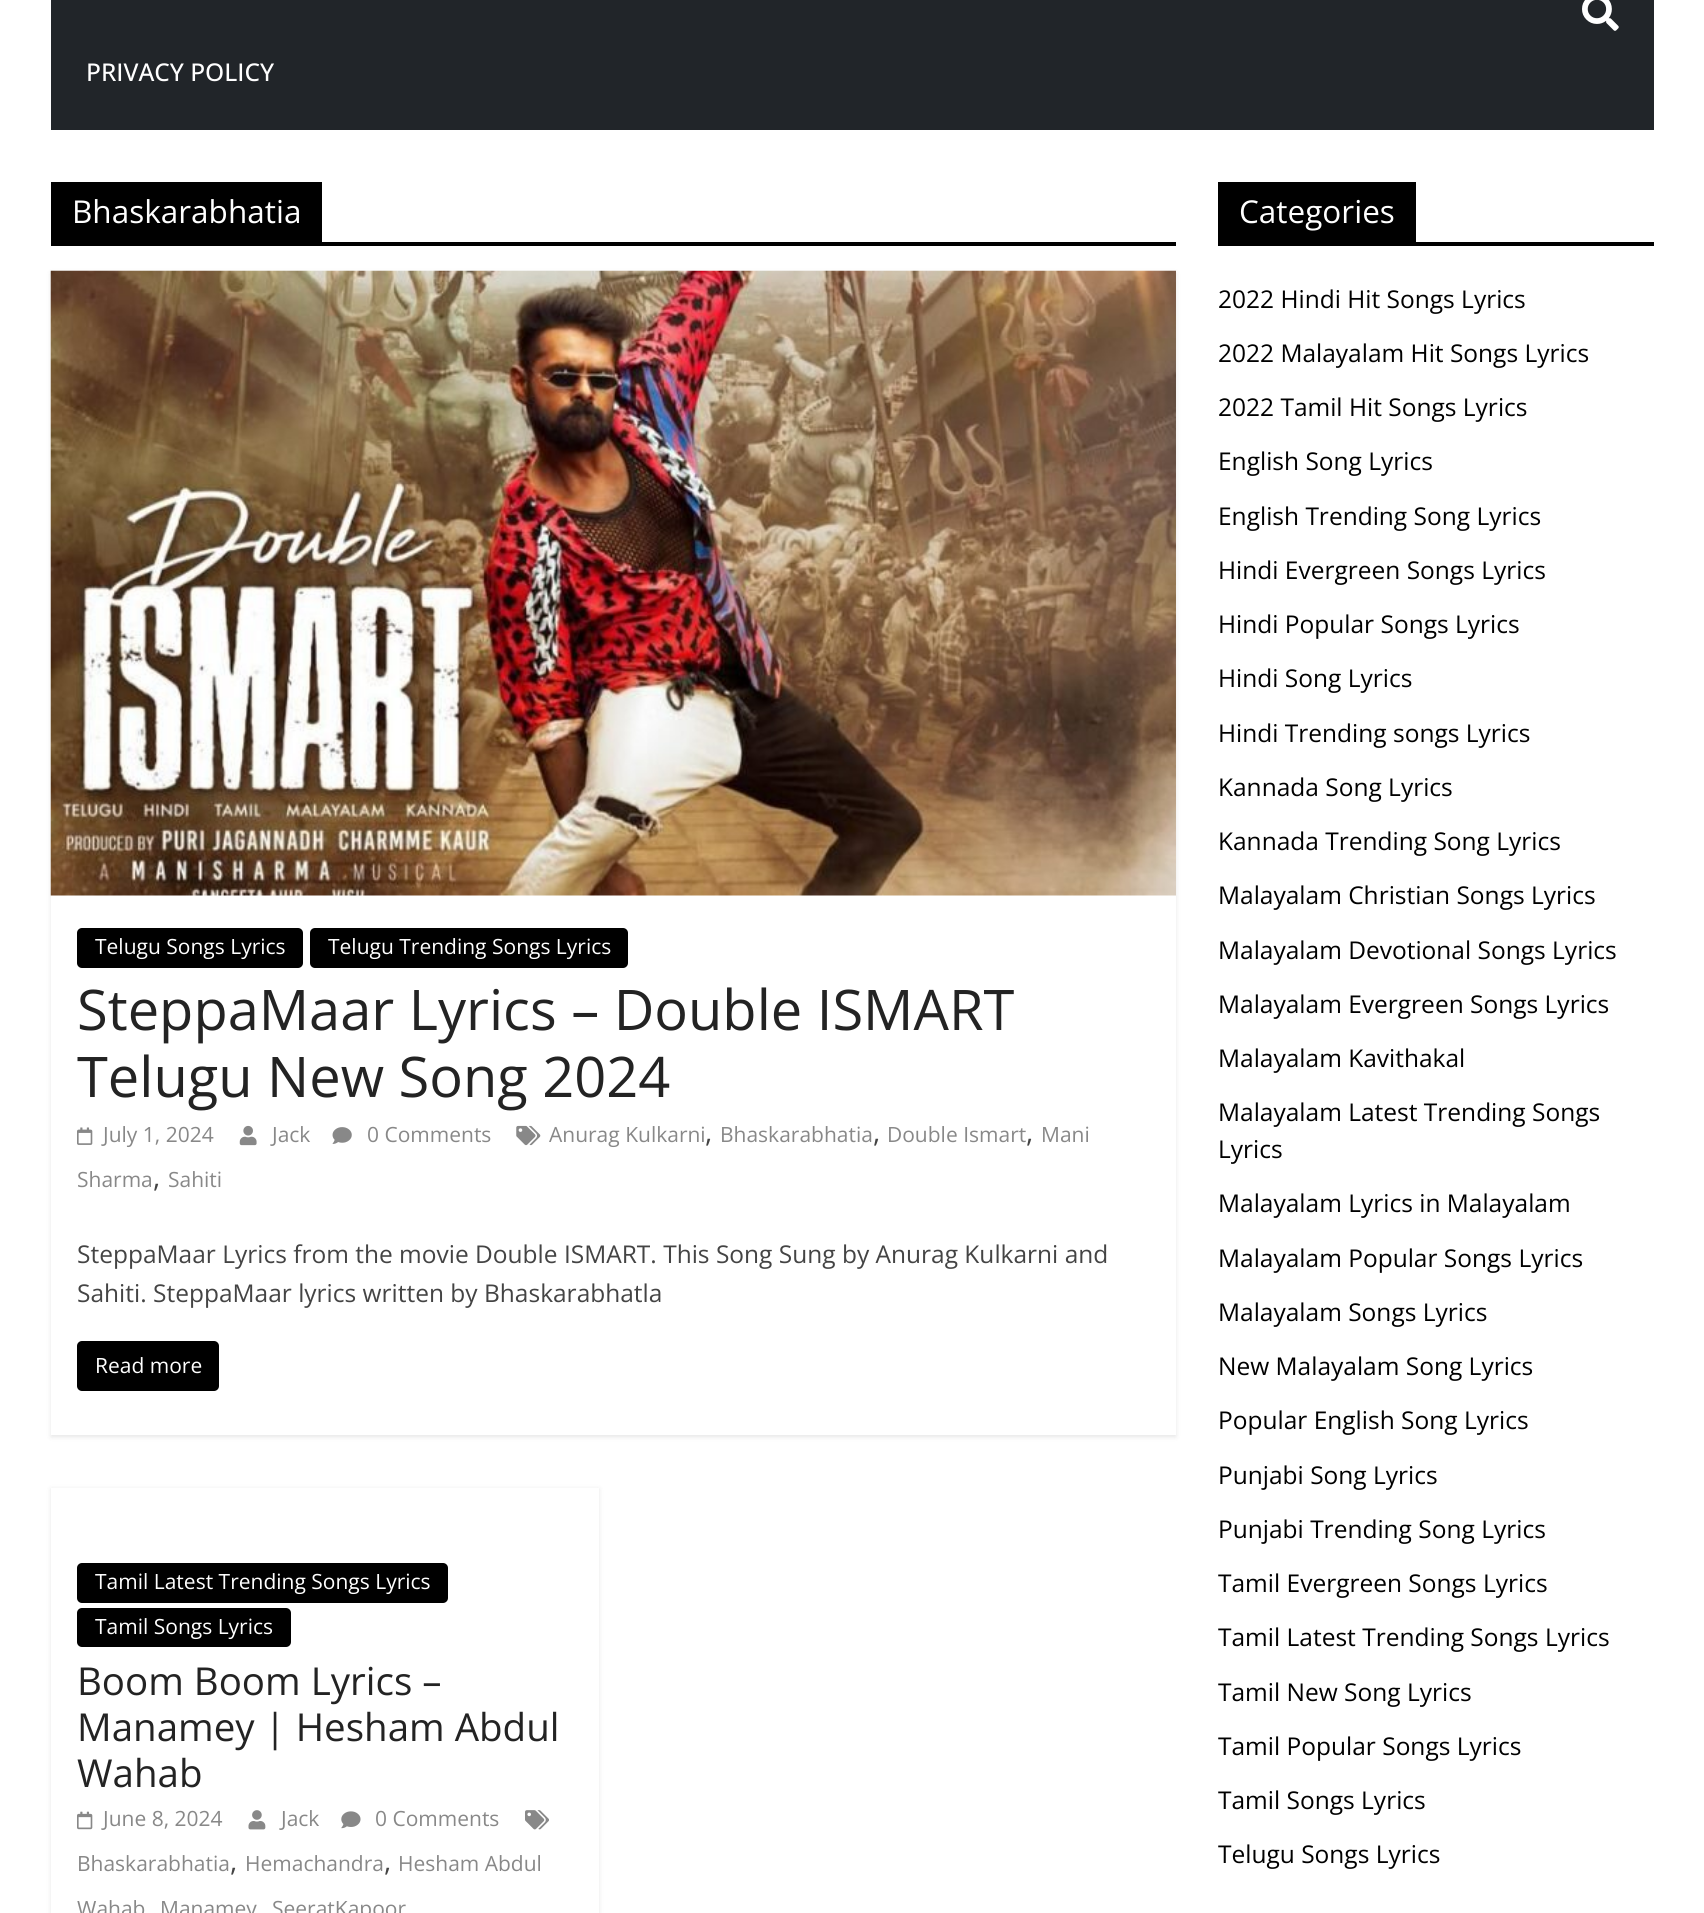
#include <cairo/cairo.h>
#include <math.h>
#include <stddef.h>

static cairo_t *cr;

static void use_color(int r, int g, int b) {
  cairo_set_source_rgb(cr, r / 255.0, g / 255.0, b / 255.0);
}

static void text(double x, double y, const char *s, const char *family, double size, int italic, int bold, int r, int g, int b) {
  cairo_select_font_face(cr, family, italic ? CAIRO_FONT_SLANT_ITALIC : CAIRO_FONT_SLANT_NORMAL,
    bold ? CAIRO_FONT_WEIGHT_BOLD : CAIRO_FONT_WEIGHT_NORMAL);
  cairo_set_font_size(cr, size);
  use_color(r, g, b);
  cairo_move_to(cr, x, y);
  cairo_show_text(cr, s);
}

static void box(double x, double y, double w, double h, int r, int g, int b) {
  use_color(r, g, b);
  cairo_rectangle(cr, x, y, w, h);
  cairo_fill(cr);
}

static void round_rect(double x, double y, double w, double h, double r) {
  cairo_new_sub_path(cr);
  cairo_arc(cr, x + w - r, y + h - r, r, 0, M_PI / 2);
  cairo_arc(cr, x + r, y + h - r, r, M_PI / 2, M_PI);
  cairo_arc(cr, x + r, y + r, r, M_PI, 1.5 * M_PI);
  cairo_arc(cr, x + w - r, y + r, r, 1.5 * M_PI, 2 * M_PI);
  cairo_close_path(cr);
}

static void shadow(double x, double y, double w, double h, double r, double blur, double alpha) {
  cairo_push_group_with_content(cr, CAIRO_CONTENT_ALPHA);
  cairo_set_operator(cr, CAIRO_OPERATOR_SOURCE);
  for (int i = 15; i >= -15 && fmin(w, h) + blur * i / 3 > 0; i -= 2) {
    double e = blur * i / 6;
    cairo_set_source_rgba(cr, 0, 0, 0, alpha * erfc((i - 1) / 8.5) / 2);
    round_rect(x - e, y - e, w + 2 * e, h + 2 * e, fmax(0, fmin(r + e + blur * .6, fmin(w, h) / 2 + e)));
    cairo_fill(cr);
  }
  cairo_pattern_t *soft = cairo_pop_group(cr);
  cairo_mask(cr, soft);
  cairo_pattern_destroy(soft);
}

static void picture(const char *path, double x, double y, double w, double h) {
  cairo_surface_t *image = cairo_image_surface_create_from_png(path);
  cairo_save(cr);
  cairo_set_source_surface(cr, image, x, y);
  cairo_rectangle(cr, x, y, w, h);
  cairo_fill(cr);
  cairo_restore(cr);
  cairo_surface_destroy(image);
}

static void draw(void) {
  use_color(255, 255, 255);
  cairo_paint(cr);
  box(51, 0, 1603, 130, 33, 37, 41);
  picture("img_01.png", 1582, 0, 37, 31);
  box(51, 242, 1125, 4, 0, 0, 0);
  box(51, 182, 271, 60, 0, 0, 0);
  cairo_save(cr);
  cairo_set_fill_rule(cr, CAIRO_FILL_RULE_EVEN_ODD);
  cairo_new_path(cr);
  cairo_move_to(cr, 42, 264);
  cairo_line_to(cr, 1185, 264);
  cairo_line_to(cr, 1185, 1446);
  cairo_line_to(cr, 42, 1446);
  cairo_close_path(cr);
  cairo_move_to(cr, 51, 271);
  cairo_line_to(cr, 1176, 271);
  cairo_line_to(cr, 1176, 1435);
  cairo_line_to(cr, 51, 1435);
  cairo_close_path(cr);
  cairo_clip(cr);
  use_color(0, 0, 0);
  shadow(51, 273, 1125, 1164, 0, 2.5, 0.1);
  cairo_restore(cr);
  picture("img_02.png", 50, 270, 1126, 626);
  round_rect(77, 928, 226, 40, 5);
  cairo_fill(cr);
  round_rect(310, 928, 318, 40, 5);
  cairo_fill(cr);
  picture("img_03.png", 516, 1125, 25, 21);
  picture("img_04.png", 77, 1127, 16, 18);
  picture("img_05.png", 239, 1125, 18, 21);
  picture("img_06.png", 332, 1127, 20, 17);
  round_rect(77, 1341, 142, 50, 5);
  cairo_fill(cr);
  cairo_save(cr);
  cairo_set_fill_rule(cr, CAIRO_FILL_RULE_EVEN_ODD);
  cairo_new_path(cr);
  cairo_move_to(cr, 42, 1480);
  cairo_line_to(cr, 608, 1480);
  cairo_line_to(cr, 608, 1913);
  cairo_line_to(cr, 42, 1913);
  cairo_close_path(cr);
  cairo_move_to(cr, 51, 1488);
  cairo_line_to(cr, 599, 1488);
  cairo_line_to(cr, 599, 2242);
  cairo_line_to(cr, 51, 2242);
  cairo_close_path(cr);
  cairo_clip(cr);
  use_color(0, 0, 0);
  shadow(51, 1489, 548, 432, 0, 2.5, 0.1);
  cairo_restore(cr);
  round_rect(77, 1563, 371, 40, 5);
  cairo_fill(cr);
  round_rect(77, 1608, 214, 39, 5);
  cairo_fill(cr);
  picture("img_07.png", 77, 1811, 16, 19);
  picture("img_08.png", 248, 1810, 18, 20);
  picture("img_09.png", 341, 1811, 20, 18);
  picture("img_10.png", 525, 1810, 24, 20);
  box(1218, 242, 436, 4, 0, 0, 0);
  box(1218, 182, 198, 60, 0, 0, 0);
  text(86, 81, "PRIVACY POLICY", "Open Sans Medium", 24.5, 0, 0, 255, 255, 255);
  text(72, 223, "Bhaskarabhatia", "Open Sans", 31.5, 0, 0, 255, 255, 255);
  text(95, 954, "Telugu Songs Lyrics", "Open Sans", 21, 0, 0, 255, 255, 255);
  text(328, 954, "Telugu Trending Songs Lyrics", "Open Sans", 21, 0, 0, 255, 255, 255);
  text(77, 1030, "SteppaMaar Lyrics – Double ISMART", "Open Sans", 56, 0, 0, 35, 35, 35);
  text(77, 1097, "Telugu New Song 2024", "Open Sans", 56, 0, 0, 35, 35, 35);
  text(549, 1142, "Anurag Kulkarni", "Open Sans", 21, 0, 0, 136, 136, 136);
  text(705, 1142, ",", "Open Sans", 28, 0, 0, 68, 68, 68);
  text(720, 1142, "Bhaskarabhatia", "Open Sans", 21, 0, 0, 136, 136, 136);
  text(873, 1142, ",", "Open Sans", 28, 0, 0, 68, 68, 68);
  text(887, 1142, "Double Ismart", "Open Sans", 21, 0, 0, 136, 136, 136);
  text(1026, 1142, ",", "Open Sans", 28, 0, 0, 68, 68, 68);
  text(1041, 1142, "Mani", "Open Sans", 21, 0, 0, 136, 136, 136);
  text(77, 1187, "Sharma", "Open Sans", 21, 0, 0, 136, 136, 136);
  text(153, 1187, ",", "Open Sans", 28, 0, 0, 68, 68, 68);
  text(168, 1187, "Sahiti", "Open Sans", 21, 0, 0, 136, 136, 136);
  text(103, 1142, "July 1, 2024", "Open Sans", 21, 0, 0, 136, 136, 136);
  text(272, 1142, "Jack", "Open Sans", 21, 0, 0, 136, 136, 136);
  text(367, 1142, "0 Comments", "Open Sans", 21, 0, 0, 136, 136, 136);
  text(77, 1263, "SteppaMaar Lyrics from the movie Double ISMART. This Song Sung by Anurag Kulkarni and", "Open Sans", 24.5, 0, 0, 68, 68, 68);
  text(77, 1302, "Sahiti. SteppaMaar lyrics written by Bhaskarabhatla", "Open Sans", 24.5, 0, 0, 68, 68, 68);
  text(95, 1373, "Read more", "Open Sans", 21, 0, 0, 255, 255, 255);
  text(95, 1589, "Tamil Latest Trending Songs Lyrics", "Open Sans", 21, 0, 0, 255, 255, 255);
  text(95, 1634, "Tamil Songs Lyrics", "Open Sans", 21, 0, 0, 255, 255, 255);
  text(77, 1695, "Boom Boom Lyrics –", "Open Sans", 38.5, 0, 0, 35, 35, 35);
  text(77, 1741, "Manamey | Hesham Abdul", "Open Sans", 38.5, 0, 0, 35, 35, 35);
  text(77, 1787, "Wahab", "Open Sans", 38.5, 0, 0, 35, 35, 35);
  text(103, 1826, "June 8, 2024", "Open Sans", 21, 0, 0, 136, 136, 136);
  text(281, 1826, "Jack", "Open Sans", 21, 0, 0, 136, 136, 136);
  text(375, 1826, "0 Comments", "Open Sans", 21, 0, 0, 136, 136, 136);
  text(77, 1871, "Bhaskarabhatia", "Open Sans", 21, 0, 0, 136, 136, 136);
  text(230, 1871, ",", "Open Sans", 28, 0, 0, 68, 68, 68);
  text(245, 1871, "Hemachandra", "Open Sans", 21, 0, 0, 136, 136, 136);
  text(384, 1871, ",", "Open Sans", 28, 0, 0, 68, 68, 68);
  text(398, 1871, "Hesham Abdul", "Open Sans", 21, 0, 0, 136, 136, 136);
  text(77, 1916, "Wahab", "Open Sans", 21, 0, 0, 136, 136, 136);
  text(160, 1916, "Manamey", "Open Sans", 21, 0, 0, 136, 136, 136);
  text(272, 1916, "SeeratKapoor", "Open Sans", 21, 0, 0, 136, 136, 136);
  text(1239, 223, "Categories", "Open Sans", 31.5, 0, 0, 255, 255, 255);
  text(1218, 308, "2022 Hindi Hit Songs Lyrics", "Open Sans", 24.5, 0, 0, 0, 0, 0);
  text(1218, 362, "2022 Malayalam Hit Songs Lyrics", "Open Sans", 24.5, 0, 0, 0, 0, 0);
  text(1218, 416, "2022 Tamil Hit Songs Lyrics", "Open Sans", 24.5, 0, 0, 0, 0, 0);
  text(1218, 470, "English Song Lyrics", "Open Sans", 24.5, 0, 0, 0, 0, 0);
  text(1218, 525, "English Trending Song Lyrics", "Open Sans", 24.5, 0, 0, 0, 0, 0);
  text(1218, 579, "Hindi Evergreen Songs Lyrics", "Open Sans", 24.5, 0, 0, 0, 0, 0);
  text(1218, 633, "Hindi Popular Songs Lyrics", "Open Sans", 24.5, 0, 0, 0, 0, 0);
  text(1218, 687, "Hindi Song Lyrics", "Open Sans", 24.5, 0, 0, 0, 0, 0);
  text(1218, 742, "Hindi Trending songs Lyrics", "Open Sans", 24.5, 0, 0, 0, 0, 0);
  text(1218, 796, "Kannada Song Lyrics", "Open Sans", 24.5, 0, 0, 0, 0, 0);
  text(1218, 850, "Kannada Trending Song Lyrics", "Open Sans", 24.5, 0, 0, 0, 0, 0);
  text(1218, 904, "Malayalam Christian Songs Lyrics", "Open Sans", 24.5, 0, 0, 0, 0, 0);
  text(1218, 959, "Malayalam Devotional Songs Lyrics", "Open Sans", 24.5, 0, 0, 0, 0, 0);
  text(1218, 1013, "Malayalam Evergreen Songs Lyrics", "Open Sans", 24.5, 0, 0, 0, 0, 0);
  text(1218, 1067, "Malayalam Kavithakal", "Open Sans", 24.5, 0, 0, 0, 0, 0);
  text(1218, 1121, "Malayalam Latest Trending Songs", "Open Sans", 24.5, 0, 0, 0, 0, 0);
  text(1218, 1158, "Lyrics", "Open Sans", 24.5, 0, 0, 0, 0, 0);
  text(1218, 1212, "Malayalam Lyrics in Malayalam", "Open Sans", 24.5, 0, 0, 0, 0, 0);
  text(1218, 1267, "Malayalam Popular Songs Lyrics", "Open Sans", 24.5, 0, 0, 0, 0, 0);
  text(1218, 1321, "Malayalam Songs Lyrics", "Open Sans", 24.5, 0, 0, 0, 0, 0);
  text(1218, 1375, "New Malayalam Song Lyrics", "Open Sans", 24.5, 0, 0, 0, 0, 0);
  text(1218, 1429, "Popular English Song Lyrics", "Open Sans", 24.5, 0, 0, 0, 0, 0);
  text(1218, 1484, "Punjabi Song Lyrics", "Open Sans", 24.5, 0, 0, 0, 0, 0);
  text(1218, 1538, "Punjabi Trending Song Lyrics", "Open Sans", 24.5, 0, 0, 0, 0, 0);
  text(1218, 1592, "Tamil Evergreen Songs Lyrics", "Open Sans", 24.5, 0, 0, 0, 0, 0);
  text(1218, 1646, "Tamil Latest Trending Songs Lyrics", "Open Sans", 24.5, 0, 0, 0, 0, 0);
  text(1218, 1701, "Tamil New Song Lyrics", "Open Sans", 24.5, 0, 0, 0, 0, 0);
  text(1218, 1755, "Tamil Popular Songs Lyrics", "Open Sans", 24.5, 0, 0, 0, 0, 0);
  text(1218, 1809, "Tamil Songs Lyrics", "Open Sans", 24.5, 0, 0, 0, 0, 0);
  text(1218, 1863, "Telugu Songs Lyrics", "Open Sans", 24.5, 0, 0, 0, 0, 0);
}

int main(void) {
  cairo_surface_t *surface = cairo_image_surface_create(CAIRO_FORMAT_RGB24, 1704, 1913);
  cr = cairo_create(surface);
  cairo_font_options_t *options = cairo_font_options_create();
  cairo_font_options_set_hint_metrics(options, CAIRO_HINT_METRICS_OFF);
  cairo_font_options_set_hint_style(options, CAIRO_HINT_STYLE_NONE);
  cairo_set_font_options(cr, options);
  cairo_set_miter_limit(cr, 4);
  draw();
  cairo_surface_write_to_png(surface, "out.png");
  cairo_font_options_destroy(options);
  cairo_destroy(cr);
  cairo_surface_destroy(surface);
  return 0;
}
